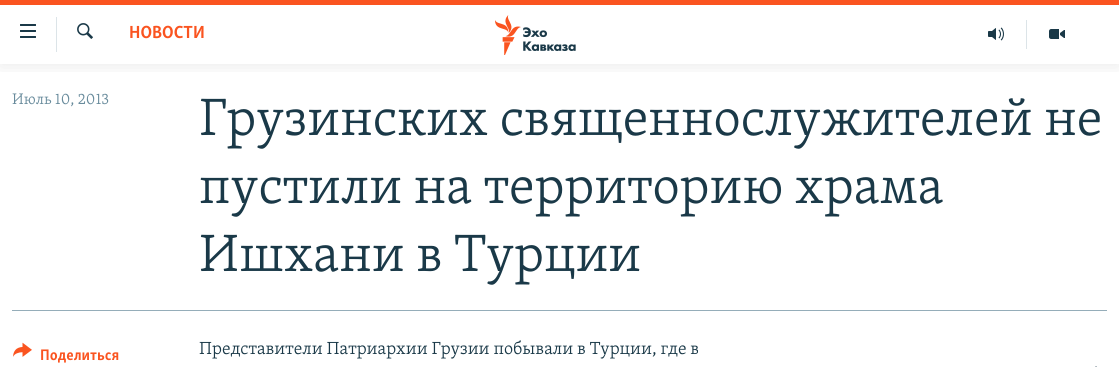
#include <cairo/cairo.h>
#include <math.h>
#include <stddef.h>

static cairo_t *cr;

static void use_color(int r, int g, int b) {
  cairo_set_source_rgb(cr, r / 255.0, g / 255.0, b / 255.0);
}

static void text(double x, double y, const char *s, const char *family, double size, int italic, int bold, int r, int g, int b) {
  cairo_select_font_face(cr, family, italic ? CAIRO_FONT_SLANT_ITALIC : CAIRO_FONT_SLANT_NORMAL,
    bold ? CAIRO_FONT_WEIGHT_BOLD : CAIRO_FONT_WEIGHT_NORMAL);
  cairo_set_font_size(cr, size);
  use_color(r, g, b);
  cairo_move_to(cr, x, y);
  cairo_show_text(cr, s);
}

static void box(double x, double y, double w, double h, int r, int g, int b) {
  use_color(r, g, b);
  cairo_rectangle(cr, x, y, w, h);
  cairo_fill(cr);
}

static void round_rect(double x, double y, double w, double h, double r) {
  cairo_new_sub_path(cr);
  cairo_arc(cr, x + w - r, y + h - r, r, 0, M_PI / 2);
  cairo_arc(cr, x + r, y + h - r, r, M_PI / 2, M_PI);
  cairo_arc(cr, x + r, y + r, r, M_PI, 1.5 * M_PI);
  cairo_arc(cr, x + w - r, y + r, r, 1.5 * M_PI, 2 * M_PI);
  cairo_close_path(cr);
}

static void shadow(double x, double y, double w, double h, double r, double blur, double alpha) {
  cairo_push_group_with_content(cr, CAIRO_CONTENT_ALPHA);
  cairo_set_operator(cr, CAIRO_OPERATOR_SOURCE);
  for (int i = 15; i >= -15 && fmin(w, h) + blur * i / 3 > 0; i -= 2) {
    double e = blur * i / 6;
    cairo_set_source_rgba(cr, 0, 0, 0, alpha * erfc((i - 1) / 8.5) / 2);
    round_rect(x - e, y - e, w + 2 * e, h + 2 * e, fmax(0, fmin(r + e + blur * .6, fmin(w, h) / 2 + e)));
    cairo_fill(cr);
  }
  cairo_pattern_t *soft = cairo_pop_group(cr);
  cairo_mask(cr, soft);
  cairo_pattern_destroy(soft);
}

static void picture(const char *path, double x, double y, double w, double h) {
  cairo_surface_t *image = cairo_image_surface_create_from_png(path);
  cairo_save(cr);
  cairo_set_source_surface(cr, image, x, y);
  cairo_rectangle(cr, x, y, w, h);
  cairo_fill(cr);
  cairo_restore(cr);
  cairo_surface_destroy(image);
}

static void draw(void) {
  use_color(255, 255, 255);
  cairo_paint(cr);
  cairo_save(cr);
  cairo_rectangle(cr, 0, 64, 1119, 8);
  cairo_clip(cr);
  use_color(0, 0, 0);
  shadow(0, 0, 1119, 64, 0, 10, 0.1);
  cairo_restore(cr);
  box(0, 0, 1119, 5, 250, 84, 32);
  picture("img_01.png", 20, 24, 16, 14);
  box(56, 17, 1, 35, 220, 228, 232);
  picture("img_02.png", 77, 23, 16, 16);
  picture("img_03.png", 495, 15, 81, 40);
  box(1026, 20, 1, 29, 220, 228, 232);
  picture("img_04.png", 988, 27, 16, 14);
  picture("img_05.png", 1049, 29, 16, 10);
  box(12, 310, 1095, 1, 149, 173, 185);
  picture("img_06.png", 13, 342, 19, 15);
  picture("img_07.png", 1095, 366, 2, 1);
  text(129, 38, "НОВОСТИ", "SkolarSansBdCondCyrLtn", 18, 0, 1, 250, 84, 32);
  text(12, 104, "Июль 10, 2013", "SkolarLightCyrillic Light", 15.75, 0, 0, 103, 138, 155);
  text(199, 135, "Грузинских священнослужителей не", "SkolarLightCyrillic Light", 54, 0, 0, 26, 57, 72);
  text(199, 203, "пустили на территорию храма", "SkolarLightCyrillic Light", 54, 0, 0, 26, 57, 72);
  text(199, 271, "Ишхани в Турции", "SkolarLightCyrillic Light", 54, 0, 0, 26, 57, 72);
  text(40, 360, "Поделиться", "SkolarSansBdCondCyrLtn", 15.75, 0, 1, 250, 84, 32);
  text(199, 354, "Представители Патриархии Грузии побывали в Турции, где в", "SkolarLightCyrillic Light", 18, 0, 0, 26, 57, 72);
}

int main(void) {
  cairo_surface_t *surface = cairo_image_surface_create(CAIRO_FORMAT_RGB24, 1119, 367);
  cr = cairo_create(surface);
  cairo_font_options_t *options = cairo_font_options_create();
  cairo_font_options_set_hint_metrics(options, CAIRO_HINT_METRICS_OFF);
  cairo_font_options_set_hint_style(options, CAIRO_HINT_STYLE_NONE);
  cairo_set_font_options(cr, options);
  cairo_set_miter_limit(cr, 4);
  draw();
  cairo_surface_write_to_png(surface, "out.png");
  cairo_font_options_destroy(options);
  cairo_destroy(cr);
  cairo_surface_destroy(surface);
  return 0;
}
